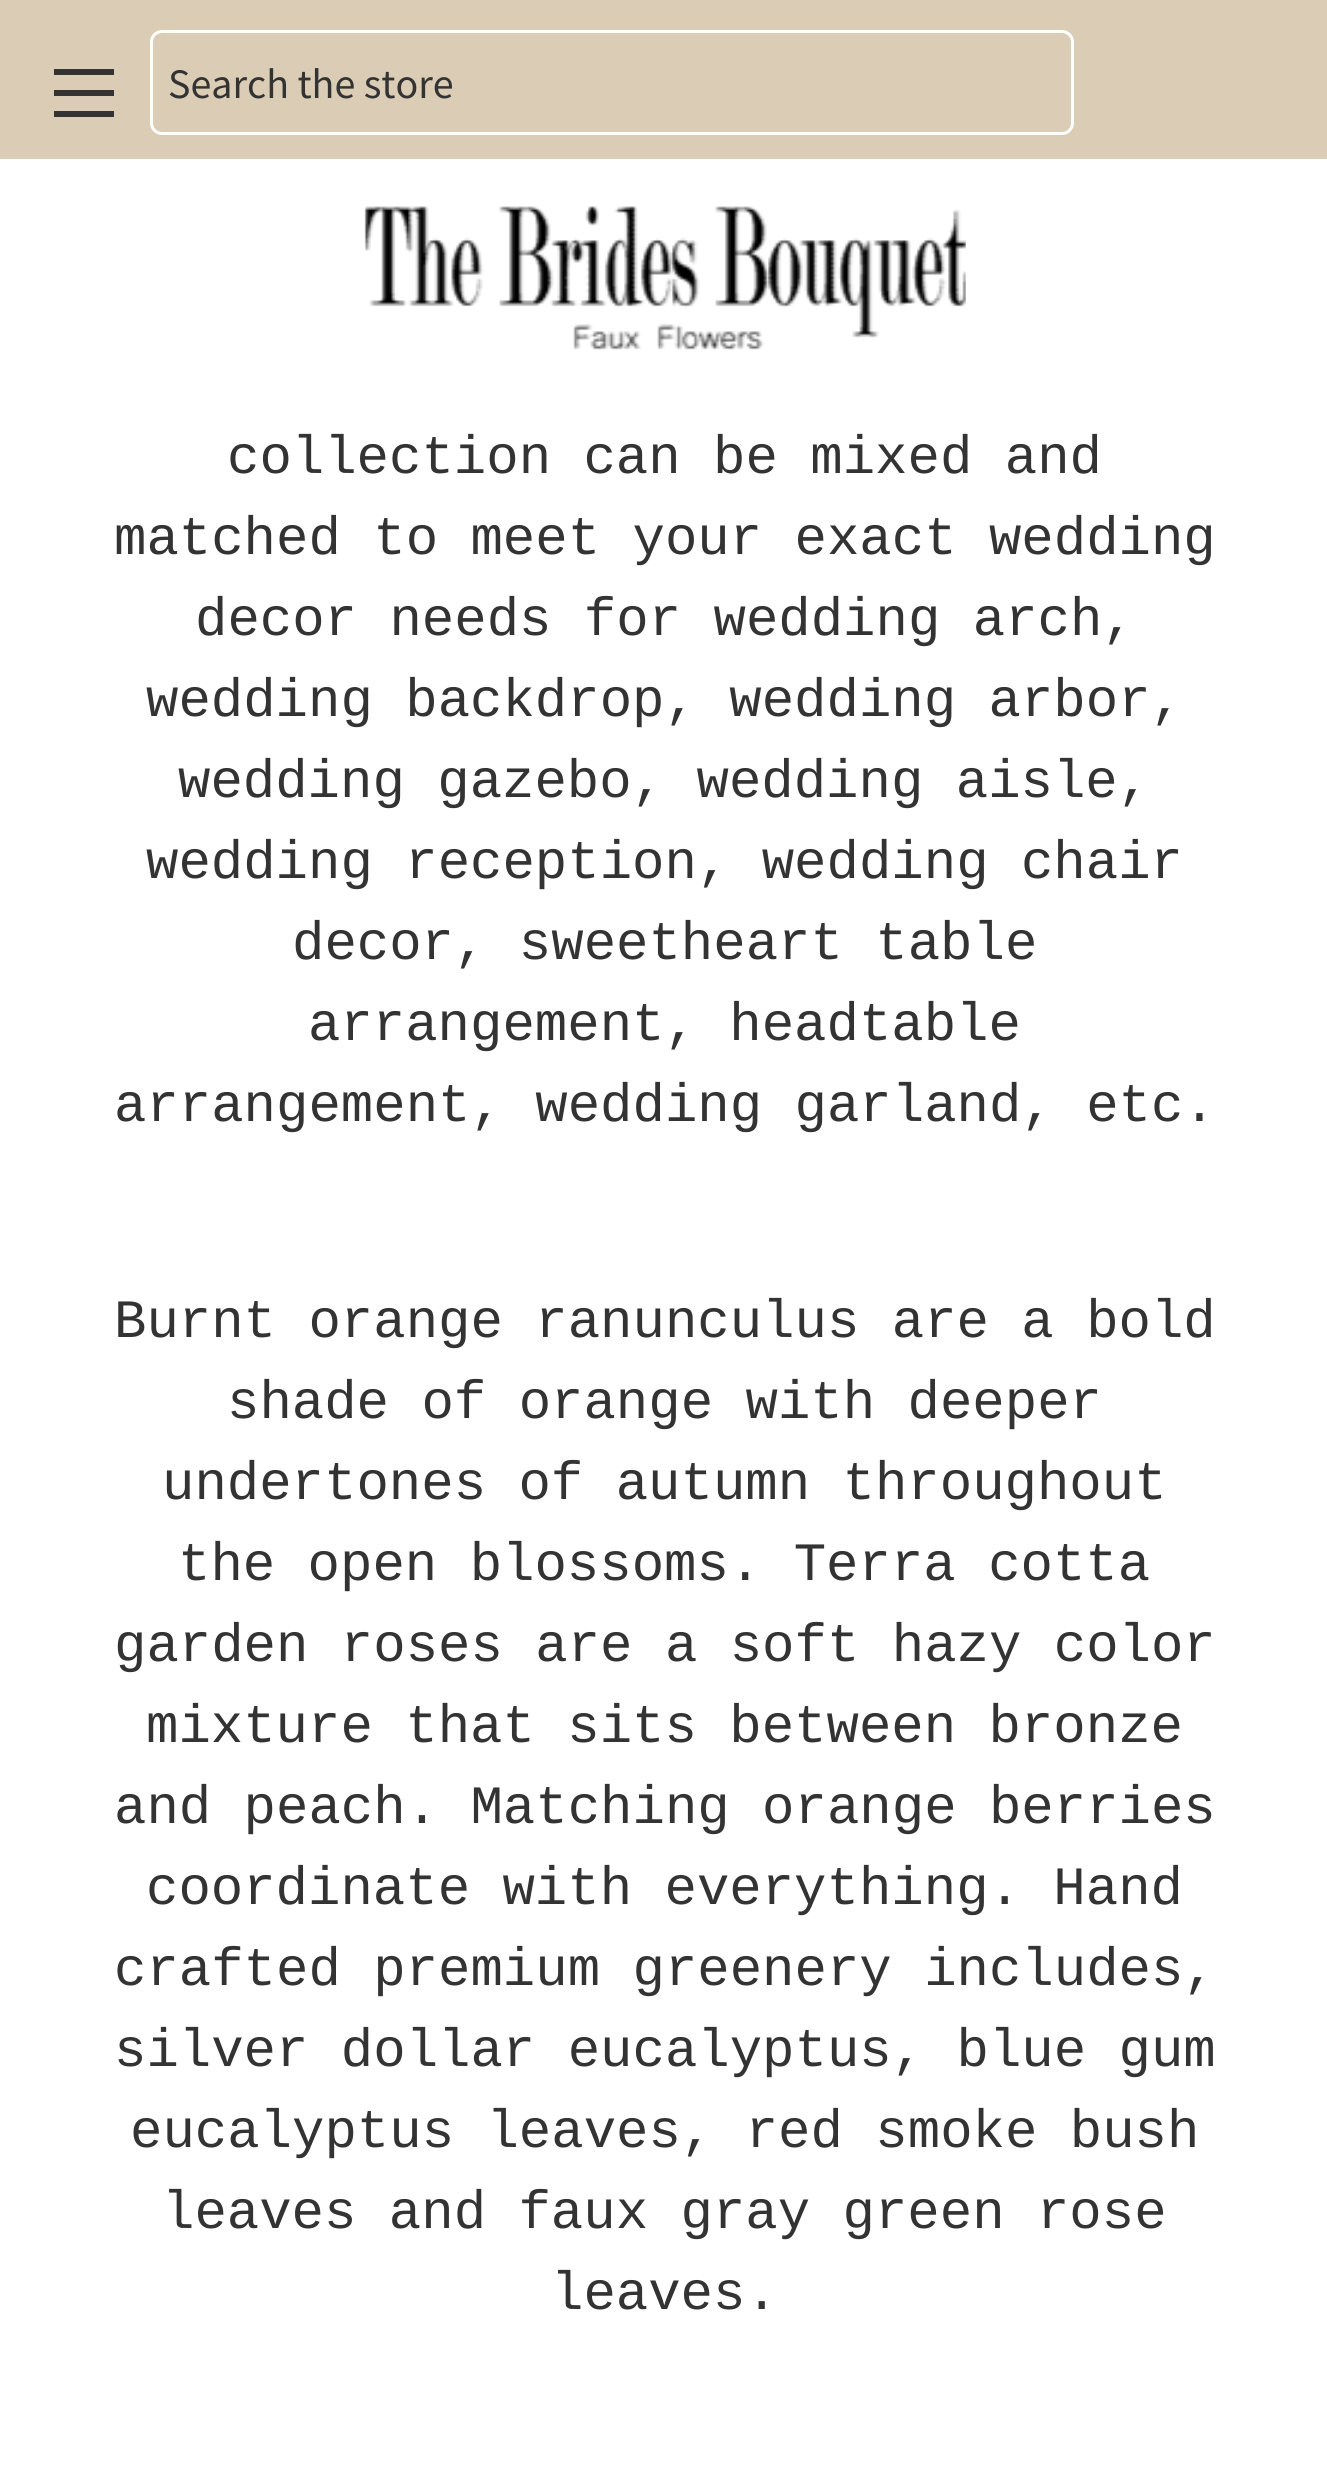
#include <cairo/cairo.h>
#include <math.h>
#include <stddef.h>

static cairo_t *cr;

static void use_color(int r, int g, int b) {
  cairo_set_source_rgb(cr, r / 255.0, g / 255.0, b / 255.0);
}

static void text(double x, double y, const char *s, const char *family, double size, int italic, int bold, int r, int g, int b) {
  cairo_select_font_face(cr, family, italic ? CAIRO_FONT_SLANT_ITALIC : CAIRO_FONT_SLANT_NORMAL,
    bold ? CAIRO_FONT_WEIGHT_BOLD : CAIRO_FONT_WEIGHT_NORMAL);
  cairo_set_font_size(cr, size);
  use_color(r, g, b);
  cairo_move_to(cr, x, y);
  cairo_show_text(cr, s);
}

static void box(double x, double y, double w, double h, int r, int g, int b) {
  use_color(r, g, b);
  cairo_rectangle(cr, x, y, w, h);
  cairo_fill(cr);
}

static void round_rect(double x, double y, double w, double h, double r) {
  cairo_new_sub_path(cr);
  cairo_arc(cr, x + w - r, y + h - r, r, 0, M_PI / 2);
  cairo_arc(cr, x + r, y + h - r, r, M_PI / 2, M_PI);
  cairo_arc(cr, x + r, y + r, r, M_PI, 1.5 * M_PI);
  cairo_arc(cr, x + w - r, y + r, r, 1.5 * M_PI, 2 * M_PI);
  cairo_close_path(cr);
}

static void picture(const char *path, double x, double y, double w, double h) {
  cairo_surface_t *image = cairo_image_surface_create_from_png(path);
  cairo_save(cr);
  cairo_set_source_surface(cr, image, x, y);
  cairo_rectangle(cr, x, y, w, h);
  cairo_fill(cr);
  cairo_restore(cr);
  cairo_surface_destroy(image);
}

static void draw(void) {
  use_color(255, 255, 255);
  cairo_paint(cr);
  box(0, 0, 1327, 159, 219, 204, 181);
  box(54, 90, 60, 6, 51, 51, 51);
  box(54, 69, 60, 6, 51, 51, 51);
  box(54, 111, 60, 6, 51, 51, 51);
  round_rect(151.5, 31.5, 921, 102, 10.5);
  use_color(255, 255, 255);
  cairo_set_line_width(cr, 3);
  cairo_stroke(cr);
  picture("img_01.png", 364, 206, 602, 144);
  text(168, 98, "Search the store", "Source Sans Pro", 42, 0, 0, 51, 51, 51);
  text(227, 473, "collection can be mixed and", "Liberation Mono", 54, 0, 0, 51, 51, 51);
  text(114, 554, "matched to meet your exact wedding", "Liberation Mono", 54, 0, 0, 51, 51, 51);
  text(195, 635, "decor needs for wedding arch,", "Liberation Mono", 54, 0, 0, 51, 51, 51);
  text(146, 716, "wedding backdrop, wedding arbor,", "Liberation Mono", 54, 0, 0, 51, 51, 51);
  text(178, 797, "wedding gazebo, wedding aisle,", "Liberation Mono", 54, 0, 0, 51, 51, 51);
  text(146, 878, "wedding reception, wedding chair", "Liberation Mono", 54, 0, 0, 51, 51, 51);
  text(292, 959, "decor, sweetheart table", "Liberation Mono", 54, 0, 0, 51, 51, 51);
  text(308, 1040, "arrangement, headtable", "Liberation Mono", 54, 0, 0, 51, 51, 51);
  text(114, 1121, "arrangement, wedding garland, etc.", "Liberation Mono", 54, 0, 0, 51, 51, 51);
  text(114, 1337, "Burnt orange ranunculus are a bold", "Liberation Mono", 54, 0, 0, 51, 51, 51);
  text(227, 1418, "shade of orange with deeper", "Liberation Mono", 54, 0, 0, 51, 51, 51);
  text(162, 1499, "undertones of autumn throughout", "Liberation Mono", 54, 0, 0, 51, 51, 51);
  text(178, 1580, "the open blossoms. Terra cotta", "Liberation Mono", 54, 0, 0, 51, 51, 51);
  text(114, 1661, "garden roses are a soft hazy color", "Liberation Mono", 54, 0, 0, 51, 51, 51);
  text(146, 1742, "mixture that sits between bronze", "Liberation Mono", 54, 0, 0, 51, 51, 51);
  text(114, 1823, "and peach. Matching orange berries", "Liberation Mono", 54, 0, 0, 51, 51, 51);
  text(146, 1904, "coordinate with everything. Hand", "Liberation Mono", 54, 0, 0, 51, 51, 51);
  text(114, 1985, "crafted premium greenery includes,", "Liberation Mono", 54, 0, 0, 51, 51, 51);
  text(114, 2066, "silver dollar eucalyptus, blue gum", "Liberation Mono", 54, 0, 0, 51, 51, 51);
  text(130, 2147, "eucalyptus leaves, red smoke bush", "Liberation Mono", 54, 0, 0, 51, 51, 51);
  text(162, 2228, "leaves and faux gray green rose", "Liberation Mono", 54, 0, 0, 51, 51, 51);
  text(551, 2309, "leaves.", "Liberation Mono", 54, 0, 0, 51, 51, 51);
}

int main(void) {
  cairo_surface_t *surface = cairo_image_surface_create(CAIRO_FORMAT_RGB24, 1327, 2476);
  cr = cairo_create(surface);
  cairo_font_options_t *options = cairo_font_options_create();
  cairo_font_options_set_hint_metrics(options, CAIRO_HINT_METRICS_OFF);
  cairo_font_options_set_hint_style(options, CAIRO_HINT_STYLE_NONE);
  cairo_set_font_options(cr, options);
  cairo_set_miter_limit(cr, 4);
  draw();
  cairo_surface_write_to_png(surface, "out.png");
  cairo_font_options_destroy(options);
  cairo_destroy(cr);
  cairo_surface_destroy(surface);
  return 0;
}
